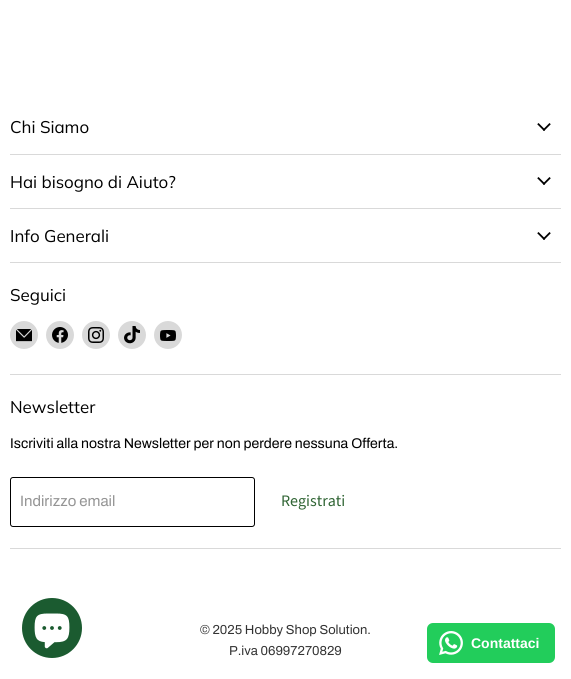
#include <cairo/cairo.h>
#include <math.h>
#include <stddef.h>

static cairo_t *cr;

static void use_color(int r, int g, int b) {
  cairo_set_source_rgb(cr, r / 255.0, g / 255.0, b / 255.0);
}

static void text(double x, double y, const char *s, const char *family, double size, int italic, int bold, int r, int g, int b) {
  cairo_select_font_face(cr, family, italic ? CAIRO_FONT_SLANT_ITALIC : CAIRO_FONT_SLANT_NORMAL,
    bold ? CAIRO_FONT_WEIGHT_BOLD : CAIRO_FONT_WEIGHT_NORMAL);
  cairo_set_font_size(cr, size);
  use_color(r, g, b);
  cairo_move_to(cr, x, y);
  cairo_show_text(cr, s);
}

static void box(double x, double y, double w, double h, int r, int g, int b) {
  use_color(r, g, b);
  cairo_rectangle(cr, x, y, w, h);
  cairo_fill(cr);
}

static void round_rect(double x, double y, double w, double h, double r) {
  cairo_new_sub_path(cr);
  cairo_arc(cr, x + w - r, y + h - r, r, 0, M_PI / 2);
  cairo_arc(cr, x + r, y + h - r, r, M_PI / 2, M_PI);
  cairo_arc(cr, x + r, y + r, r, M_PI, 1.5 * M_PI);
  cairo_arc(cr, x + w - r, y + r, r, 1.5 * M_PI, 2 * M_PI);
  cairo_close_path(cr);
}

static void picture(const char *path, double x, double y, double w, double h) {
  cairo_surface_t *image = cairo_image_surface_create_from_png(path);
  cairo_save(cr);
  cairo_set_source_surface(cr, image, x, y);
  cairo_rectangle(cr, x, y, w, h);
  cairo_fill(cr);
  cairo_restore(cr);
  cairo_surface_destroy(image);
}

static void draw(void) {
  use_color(255, 255, 255);
  cairo_paint(cr);
  box(10, 154, 551, 1, 217, 217, 217);
  picture("img_01.png", 537, 123, 14, 8);
  box(10, 208, 551, 1, 217, 217, 217);
  picture("img_01.png", 537, 177, 14, 8);
  box(10, 262, 551, 1, 217, 217, 217);
  picture("img_01.png", 537, 232, 14, 8);
  box(10, 374, 551, 1, 217, 217, 217);
  cairo_arc(cr, 24, 335, 14, 0, 2 * M_PI);
  cairo_fill(cr);
  picture("img_02.png", 16, 329, 16, 13);
  cairo_arc(cr, 60, 335, 14, 0, 2 * M_PI);
  cairo_fill(cr);
  picture("img_03.png", 52, 327, 16, 16);
  cairo_arc(cr, 96, 335, 14, 0, 2 * M_PI);
  cairo_fill(cr);
  picture("img_04.png", 88, 327, 16, 16);
  cairo_arc(cr, 132, 335, 14, 0, 2 * M_PI);
  cairo_fill(cr);
  picture("img_05.png", 124, 326, 16, 18);
  cairo_arc(cr, 168, 335, 14, 0, 2 * M_PI);
  cairo_fill(cr);
  picture("img_06.png", 160, 330, 16, 11);
  box(10, 548, 551, 1, 217, 217, 217);
  round_rect(10.5, 477.5, 244, 49, 2.5);
  use_color(0, 0, 0);
  cairo_set_line_width(cr, 1);
  cairo_stroke(cr);
  use_color(27, 91, 48);
  cairo_arc(cr, 52, 628, 30, 0, 2 * M_PI);
  cairo_fill(cr);
  picture("img_07.png", 34, 613, 36, 36);
  use_color(34, 205, 91);
  round_rect(427, 623, 128, 40, 6);
  cairo_fill(cr);
  picture("img_08.png", 439, 631, 24, 24);
  text(10, 133, "Chi Siamo", "Muli", 16.9, 0, 0, 0, 0, 0);
  text(10, 188, "Hai bisogno di Aiuto?", "Muli", 16.9, 0, 0, 0, 0, 0);
  text(10, 242, "Info Generali", "Muli", 16.9, 0, 0, 0, 0, 0);
  text(10, 301, "Seguici", "Muli", 16.9, 0, 0, 0, 0, 0);
  text(10, 413, "Newsletter", "Muli", 16.9, 0, 0, 0, 0, 0);
  text(10, 448, "Iscriviti alla nostra Newsletter per non perdere nessuna Offerta.", "Archivo", 14.05, 0, 0, 0, 0, 0);
  text(20, 506, "Indirizzo email", "Archivo", 15, 0, 0, 148, 148, 148);
  text(281, 506, "Registrati", "Source Sans Pro", 16, 0, 0, 47, 100, 51);
  text(200, 634, "© 2025 Hobby Shop Solution.", "Archivo", 13, 0, 0, 51, 51, 51);
  text(229, 655, "P.iva 06997270829", "Archivo", 13, 0, 0, 51, 51, 51);
  text(471, 648, "Contattaci", "Liberation Sans", 14, 0, 1, 255, 255, 255);
}

int main(void) {
  cairo_surface_t *surface = cairo_image_surface_create(CAIRO_FORMAT_RGB24, 571, 679);
  cr = cairo_create(surface);
  cairo_font_options_t *options = cairo_font_options_create();
  cairo_font_options_set_hint_metrics(options, CAIRO_HINT_METRICS_OFF);
  cairo_font_options_set_hint_style(options, CAIRO_HINT_STYLE_NONE);
  cairo_set_font_options(cr, options);
  cairo_set_miter_limit(cr, 4);
  draw();
  cairo_surface_write_to_png(surface, "out.png");
  cairo_font_options_destroy(options);
  cairo_destroy(cr);
  cairo_surface_destroy(surface);
  return 0;
}
